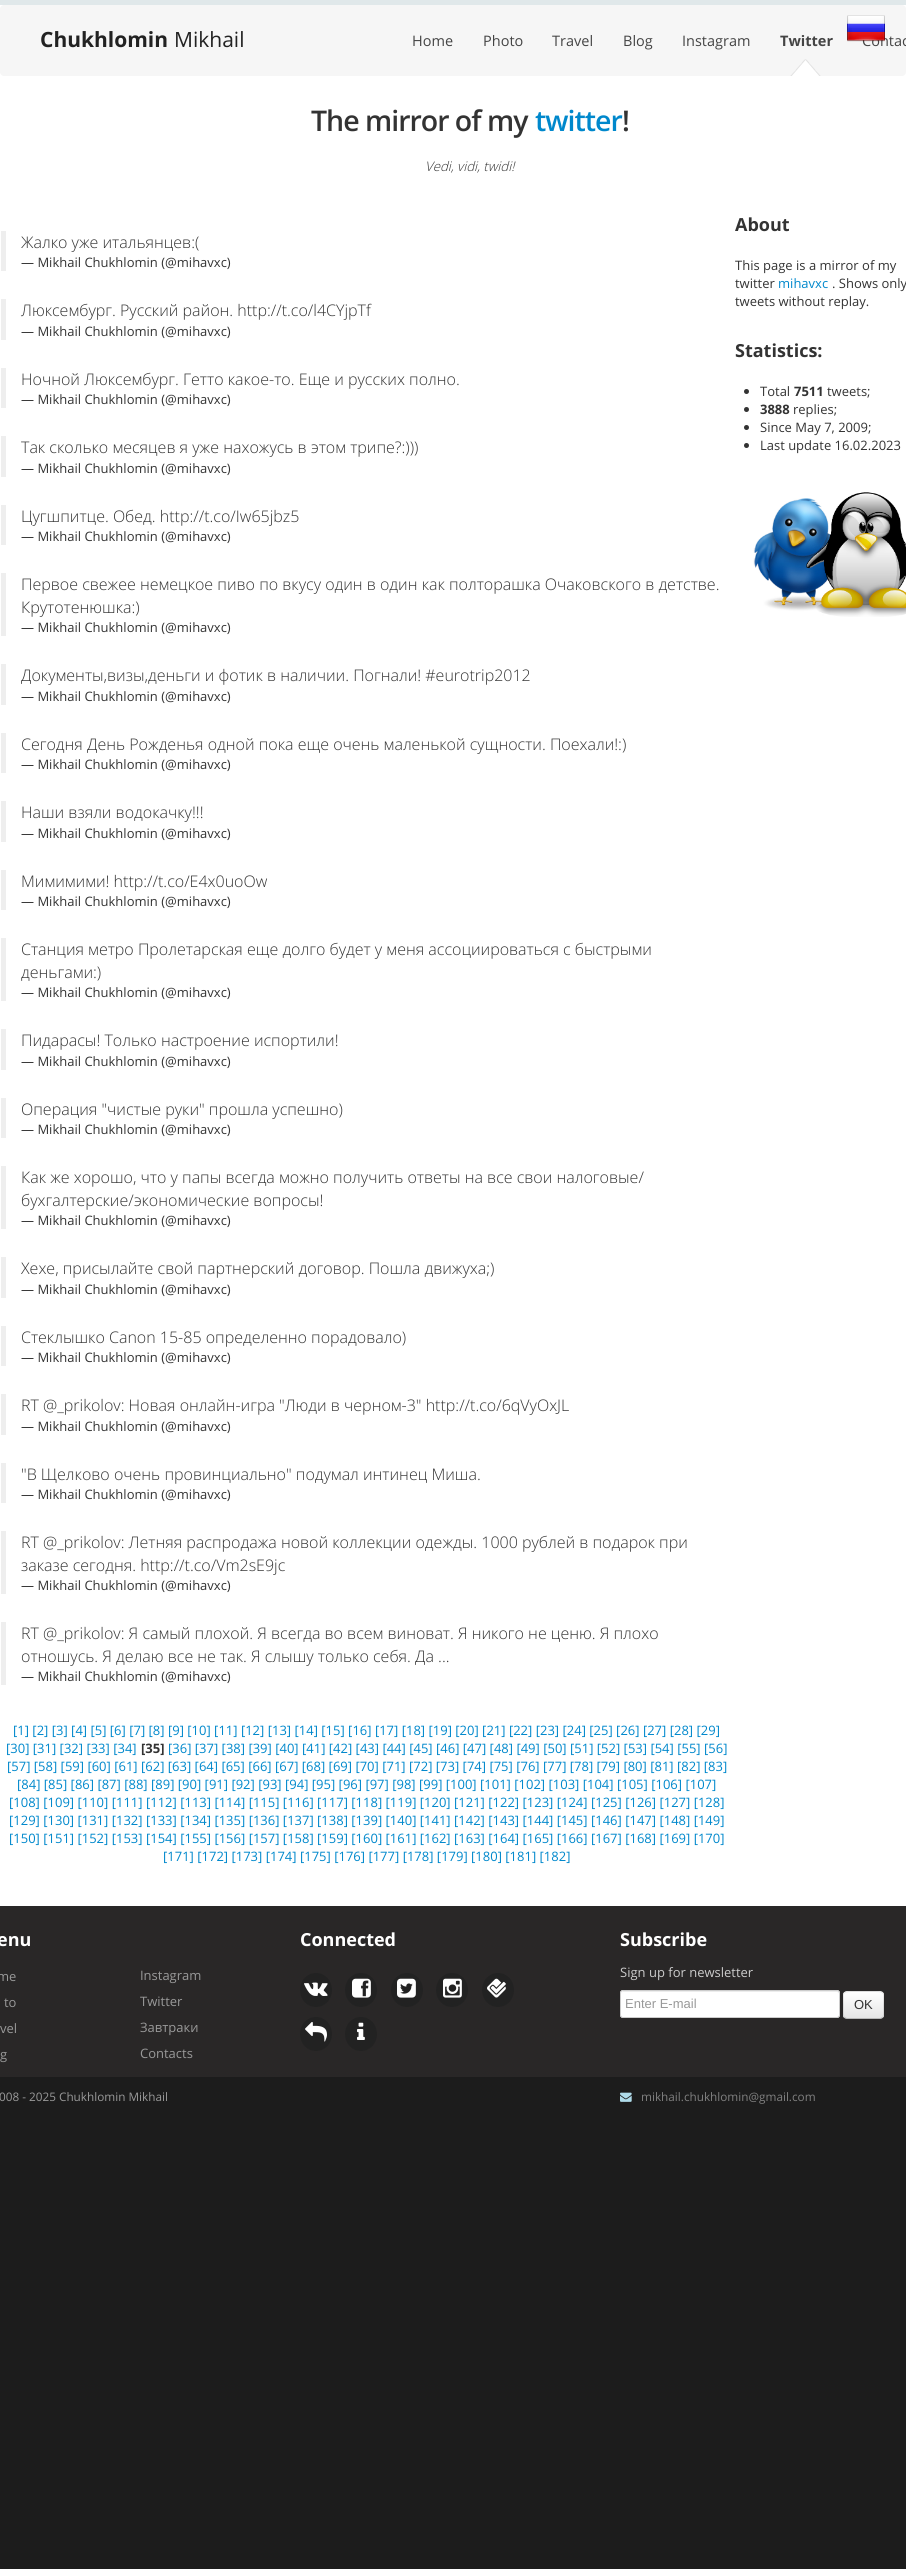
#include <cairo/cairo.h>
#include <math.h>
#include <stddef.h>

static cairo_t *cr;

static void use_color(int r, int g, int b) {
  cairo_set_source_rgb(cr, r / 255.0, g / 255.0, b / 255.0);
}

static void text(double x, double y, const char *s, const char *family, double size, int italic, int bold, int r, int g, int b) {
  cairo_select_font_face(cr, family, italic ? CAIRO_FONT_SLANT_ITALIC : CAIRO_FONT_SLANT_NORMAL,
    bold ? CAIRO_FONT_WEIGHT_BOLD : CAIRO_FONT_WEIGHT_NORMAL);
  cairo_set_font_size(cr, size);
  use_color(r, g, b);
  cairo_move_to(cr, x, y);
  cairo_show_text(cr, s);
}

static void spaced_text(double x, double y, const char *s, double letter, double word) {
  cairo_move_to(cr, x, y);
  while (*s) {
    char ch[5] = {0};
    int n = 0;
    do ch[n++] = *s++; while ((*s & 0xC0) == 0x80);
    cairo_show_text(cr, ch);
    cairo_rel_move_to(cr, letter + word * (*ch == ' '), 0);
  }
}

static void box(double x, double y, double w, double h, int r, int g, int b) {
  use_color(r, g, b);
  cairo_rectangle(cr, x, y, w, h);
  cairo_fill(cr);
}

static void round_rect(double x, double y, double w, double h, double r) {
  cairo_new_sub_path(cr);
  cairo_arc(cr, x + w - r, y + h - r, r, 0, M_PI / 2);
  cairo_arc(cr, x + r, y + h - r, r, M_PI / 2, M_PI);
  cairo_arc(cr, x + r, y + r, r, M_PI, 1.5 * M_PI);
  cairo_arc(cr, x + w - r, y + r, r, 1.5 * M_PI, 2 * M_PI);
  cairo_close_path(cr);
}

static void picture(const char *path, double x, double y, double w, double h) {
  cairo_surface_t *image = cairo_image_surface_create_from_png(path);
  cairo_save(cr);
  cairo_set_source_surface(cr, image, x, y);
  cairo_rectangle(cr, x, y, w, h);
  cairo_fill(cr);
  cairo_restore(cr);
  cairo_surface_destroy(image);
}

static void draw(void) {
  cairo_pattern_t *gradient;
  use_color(28, 28, 28);
  cairo_paint(cr);
  box(0, 5, 906, 1901, 255, 255, 255);
  box(0, 0, 906, 5, 224, 232, 234);
  use_color(246, 246, 246);
  round_rect(0, 5, 906, 71, 4);
  cairo_fill(cr);
  picture("img_02.png", 790, 59, 31, 17);
  box(1, 231, 5, 40, 238, 238, 238);
  box(1, 299, 5, 41, 238, 238, 238);
  box(1, 368, 5, 40, 238, 238, 238);
  box(1, 436, 5, 41, 238, 238, 238);
  box(1, 505, 5, 40, 238, 238, 238);
  box(1, 573, 5, 63, 238, 238, 238);
  box(1, 664, 5, 41, 238, 238, 238);
  box(1, 733, 5, 40, 238, 238, 238);
  box(1, 801, 5, 41, 238, 238, 238);
  box(1, 870, 5, 40, 238, 238, 238);
  box(1, 938, 5, 63, 238, 238, 238);
  box(1, 1029, 5, 41, 238, 238, 238);
  box(1, 1098, 5, 40, 238, 238, 238);
  box(1, 1166, 5, 63, 238, 238, 238);
  box(1, 1257, 5, 41, 238, 238, 238);
  box(1, 1326, 5, 40, 238, 238, 238);
  box(1, 1394, 5, 41, 238, 238, 238);
  box(1, 1463, 5, 40, 238, 238, 238);
  box(1, 1531, 5, 63, 238, 238, 238);
  box(1, 1622, 5, 63, 238, 238, 238);
  use_color(51, 51, 51);
  cairo_arc(cr, 746.5, 391.5, 2.5, 0, 2 * M_PI);
  cairo_fill(cr);
  cairo_arc(cr, 746.5, 409.5, 2.5, 0, 2 * M_PI);
  cairo_fill(cr);
  cairo_arc(cr, 746.5, 427.5, 2.5, 0, 2 * M_PI);
  cairo_fill(cr);
  cairo_arc(cr, 746.5, 445.5, 2.5, 0, 2 * M_PI);
  cairo_fill(cr);
  picture("img_03.png", 753, 492, 153, 125);
  box(0, 1906, 906, 171, 41, 39, 39);
  use_color(34, 34, 34);
  cairo_new_path(cr);
  cairo_move_to(cr, 316, 1973);
  cairo_curve_to(cr, 325, 1973, 332, 1980.5, 332, 1990);
  cairo_curve_to(cr, 332, 1999.5, 325, 2007, 316, 2007);
  cairo_curve_to(cr, 307, 2007, 300, 1999.5, 300, 1990);
  cairo_curve_to(cr, 300, 1980.5, 307, 1973, 316, 1973);
  cairo_close_path(cr);
  cairo_fill(cr);
  picture("img_04.png", 304, 1982, 24, 14);
  cairo_new_path(cr);
  cairo_move_to(cr, 361, 1973);
  cairo_curve_to(cr, 370, 1973, 377, 1980.5, 377, 1990);
  cairo_curve_to(cr, 377, 1999.5, 370, 2007, 361, 2007);
  cairo_curve_to(cr, 352, 2007, 345, 1999.5, 345, 1990);
  cairo_curve_to(cr, 345, 1980.5, 352, 1973, 361, 1973);
  cairo_close_path(cr);
  cairo_fill(cr);
  picture("img_05.png", 352, 1978, 19, 20);
  cairo_new_path(cr);
  cairo_move_to(cr, 407, 1973);
  cairo_curve_to(cr, 416, 1973, 423, 1980.5, 423, 1990);
  cairo_curve_to(cr, 423, 1999.5, 416, 2007, 407, 2007);
  cairo_curve_to(cr, 398, 2007, 391, 1999.5, 391, 1990);
  cairo_curve_to(cr, 391, 1980.5, 398, 1973, 407, 1973);
  cairo_close_path(cr);
  cairo_fill(cr);
  picture("img_06.png", 397, 1978, 19, 20);
  cairo_new_path(cr);
  cairo_move_to(cr, 452, 1973);
  cairo_curve_to(cr, 461, 1973, 468, 1980.5, 468, 1990);
  cairo_curve_to(cr, 468, 1999.5, 461, 2007, 452, 2007);
  cairo_curve_to(cr, 443, 2007, 436, 1999.5, 436, 1990);
  cairo_curve_to(cr, 436, 1980.5, 443, 1973, 452, 1973);
  cairo_close_path(cr);
  cairo_fill(cr);
  picture("img_07.png", 443, 1978, 19, 20);
  cairo_new_path(cr);
  cairo_move_to(cr, 498, 1973);
  cairo_curve_to(cr, 507, 1973, 514, 1980.5, 514, 1990);
  cairo_curve_to(cr, 514, 1999.5, 507, 2007, 498, 2007);
  cairo_curve_to(cr, 489, 2007, 482, 1999.5, 482, 1990);
  cairo_curve_to(cr, 482, 1980.5, 489, 1973, 498, 1973);
  cairo_close_path(cr);
  cairo_fill(cr);
  picture("img_08.png", 487, 1978, 19, 20);
  cairo_new_path(cr);
  cairo_move_to(cr, 316, 2017);
  cairo_curve_to(cr, 325, 2017, 332, 2024.5, 332, 2034);
  cairo_curve_to(cr, 332, 2043.5, 325, 2051, 316, 2051);
  cairo_curve_to(cr, 307, 2051, 300, 2043.5, 300, 2034);
  cairo_curve_to(cr, 300, 2024.5, 307, 2017, 316, 2017);
  cairo_close_path(cr);
  cairo_fill(cr);
  picture("img_09.png", 305, 2022, 22, 20);
  cairo_new_path(cr);
  cairo_move_to(cr, 361, 2017);
  cairo_curve_to(cr, 370, 2017, 377, 2024.5, 377, 2034);
  cairo_curve_to(cr, 377, 2043.5, 370, 2051, 361, 2051);
  cairo_curve_to(cr, 352, 2051, 345, 2043.5, 345, 2034);
  cairo_curve_to(cr, 345, 2024.5, 352, 2017, 361, 2017);
  cairo_close_path(cr);
  cairo_fill(cr);
  picture("img_10.png", 357, 2022, 8, 18);
  use_color(255, 255, 255);
  round_rect(620, 1990, 220, 28, 3);
  cairo_fill(cr);
  use_color(236, 236, 236);
  cairo_new_path(cr);
  cairo_move_to(cr, 623, 1992);
  cairo_line_to(cr, 837, 1992);
  cairo_curve_to(cr, 838, 1992, 839, 1993, 839, 1994);
  cairo_curve_to(cr, 839, 1993, 839, 1991, 837, 1991);
  cairo_line_to(cr, 623, 1991);
  cairo_line_to(cr, 622, 1992);
  cairo_line_to(cr, 621, 1994);
  cairo_curve_to(cr, 621, 1993, 622, 1992, 623, 1992);
  cairo_close_path(cr);
  cairo_fill(cr);
  round_rect(620.5, 1990.5, 219, 27, 2.5);
  use_color(204, 204, 204);
  cairo_set_line_width(cr, 1);
  cairo_stroke(cr);
  use_color(245, 245, 245);
  round_rect(843, 1991, 41, 28, 4);
  cairo_fill(cr);
  cairo_save(cr);
  round_rect(843, 1991, 41, 28, 4);
  cairo_clip(cr);
  gradient = cairo_pattern_create_linear(864, 1992, 864, 2018);
  cairo_pattern_add_color_stop_rgba(gradient, 0, 1, 1, 1, 1);
  cairo_pattern_add_color_stop_rgba(gradient, 1, 0.902, 0.902, 0.902, 1);
  cairo_set_source(cr, gradient);
  cairo_pattern_destroy(gradient);
  cairo_rectangle(cr, 843, 1992, 41, 26);
  cairo_fill(cr);
  cairo_restore(cr);
  cairo_new_path(cr);
  cairo_move_to(cr, 882.5, 2017.5);
  cairo_curve_to(cr, 882, 2018, 881, 2018.5, 880, 2018.5);
  cairo_line_to(cr, 847, 2018.5);
  cairo_curve_to(cr, 846, 2018.5, 845, 2018, 844.5, 2017.5);
  cairo_set_source_rgba(cr, 0, 0, 0, 0.25);
  cairo_stroke(cr);
  cairo_new_path(cr);
  cairo_move_to(cr, 844.5, 2017.5);
  cairo_curve_to(cr, 842.5, 2015, 843.5, 2007.5, 843.5, 2005);
  cairo_curve_to(cr, 843.5, 1993, 841, 1991.5, 852.5, 1991.5);
  cairo_line_to(cr, 874.5, 1991.5);
  cairo_curve_to(cr, 886, 1991.5, 883.5, 1993, 883.5, 2005);
  cairo_curve_to(cr, 883.5, 2007.5, 884.5, 2015, 882.5, 2017.5);
  cairo_set_source_rgba(cr, 0, 0, 0, 0.1);
  cairo_stroke(cr);
  picture("img_11.png", 620, 2092, 12, 10);
  text(40, 47, "Chukhlomin", "Open Sans", 21, 0, 1, 34, 34, 34);
  text(174, 47, "Mikhail", "Open Sans", 21, 0, 0, 34, 34, 34);
  text(412, 46, "Home", "Open Sans", 14.5, 0, 0, 68, 68, 68);
  text(483, 46, "Photo", "Open Sans", 14.5, 0, 0, 68, 68, 68);
  text(552, 46, "Travel", "Open Sans", 14.5, 0, 0, 68, 68, 68);
  text(623, 46, "Blog", "Open Sans", 14.5, 0, 0, 68, 68, 68);
  text(682, 46, "Instagram", "Open Sans", 14.5, 0, 0, 68, 68, 68);
  text(780, 46, "Twitter", "Open Sans", 14.5, 0, 1, 68, 68, 68);
  text(862, 46, "Contac", "Open Sans", 14.5, 0, 0, 68, 68, 68);
  picture("img_01.png", 847, 15, 38, 27);
  cairo_select_font_face(cr, "Open Sans SemiBold", CAIRO_FONT_SLANT_NORMAL, CAIRO_FONT_WEIGHT_NORMAL);
  cairo_set_font_size(cr, 28.5);
  use_color(51, 51, 51);
  spaced_text(311, 131, "The mirror of my", -1, 0);
  use_color(0, 136, 204);
  spaced_text(535, 131, "twitter", -1, 0);
  use_color(51, 51, 51);
  spaced_text(622, 131, "!", -1, 0);
  text(425, 171, "Vedi, vidi, twidi!", "Open Sans Light", 13.25, 1, 0, 51, 51, 51);
  text(21, 248, "Жалко уже итальянцев:(", "Open Sans Light", 16, 0, 0, 51, 51, 51);
  text(21, 267, "— Mikhail Chukhlomin (@mihavxc)", "Open Sans", 13, 0, 0, 51, 51, 51);
  text(21, 316, "Люксембург. Русский район. http://t.co/l4CYjpTf", "Open Sans Light", 16, 0, 0, 51, 51, 51);
  text(21, 336, "— Mikhail Chukhlomin (@mihavxc)", "Open Sans", 13, 0, 0, 51, 51, 51);
  text(21, 385, "Ночной Люксембург. Гетто какое-то. Еще и русских полно.", "Open Sans Light", 16, 0, 0, 51, 51, 51);
  text(21, 404, "— Mikhail Chukhlomin (@mihavxc)", "Open Sans", 13, 0, 0, 51, 51, 51);
  text(21, 453, "Так сколько месяцев я уже нахожусь в этом трипе?:)))", "Open Sans Light", 16, 0, 0, 51, 51, 51);
  text(21, 473, "— Mikhail Chukhlomin (@mihavxc)", "Open Sans", 13, 0, 0, 51, 51, 51);
  text(21, 522, "Цугшпитце. Обед. http://t.co/Iw65jbz5", "Open Sans Light", 16, 0, 0, 51, 51, 51);
  text(21, 541, "— Mikhail Chukhlomin (@mihavxc)", "Open Sans", 13, 0, 0, 51, 51, 51);
  text(21, 590, "Первое свежее немецкое пиво по вкусу один в один как полторашка Очаковского в детстве.", "Open Sans Light", 16, 0, 0, 51, 51, 51);
  text(21, 613, "Крутотенюшка:)", "Open Sans Light", 16, 0, 0, 51, 51, 51);
  text(21, 632, "— Mikhail Chukhlomin (@mihavxc)", "Open Sans", 13, 0, 0, 51, 51, 51);
  text(21, 681, "Документы,визы,деньги и фотик в наличии. Погнали! #eurotrip2012", "Open Sans Light", 16, 0, 0, 51, 51, 51);
  text(21, 701, "— Mikhail Chukhlomin (@mihavxc)", "Open Sans", 13, 0, 0, 51, 51, 51);
  text(21, 750, "Сегодня День Рожденья одной пока еще очень маленькой сущности. Поехали!:)", "Open Sans Light", 16, 0, 0, 51, 51, 51);
  text(21, 769, "— Mikhail Chukhlomin (@mihavxc)", "Open Sans", 13, 0, 0, 51, 51, 51);
  text(21, 818, "Наши взяли водокачку!!!", "Open Sans Light", 16, 0, 0, 51, 51, 51);
  text(21, 838, "— Mikhail Chukhlomin (@mihavxc)", "Open Sans", 13, 0, 0, 51, 51, 51);
  text(21, 887, "Мимимими! http://t.co/E4x0uoOw", "Open Sans Light", 16, 0, 0, 51, 51, 51);
  text(21, 906, "— Mikhail Chukhlomin (@mihavxc)", "Open Sans", 13, 0, 0, 51, 51, 51);
  text(21, 955, "Станция метро Пролетарская еще долго будет у меня ассоциироваться с быстрыми", "Open Sans Light", 16, 0, 0, 51, 51, 51);
  text(21, 978, "деньгами:)", "Open Sans Light", 16, 0, 0, 51, 51, 51);
  text(21, 997, "— Mikhail Chukhlomin (@mihavxc)", "Open Sans", 13, 0, 0, 51, 51, 51);
  text(21, 1046, "Пидарасы! Только настроение испортили!", "Open Sans Light", 16, 0, 0, 51, 51, 51);
  text(21, 1066, "— Mikhail Chukhlomin (@mihavxc)", "Open Sans", 13, 0, 0, 51, 51, 51);
  text(21, 1115, "Операция \"чистые руки\" прошла успешно)", "Open Sans Light", 16, 0, 0, 51, 51, 51);
  text(21, 1134, "— Mikhail Chukhlomin (@mihavxc)", "Open Sans", 13, 0, 0, 51, 51, 51);
  text(21, 1183, "Как же хорошо, что у папы всегда можно получить ответы на все свои налоговые/", "Open Sans Light", 16, 0, 0, 51, 51, 51);
  text(21, 1206, "бухгалтерские/экономические вопросы!", "Open Sans Light", 16, 0, 0, 51, 51, 51);
  text(21, 1225, "— Mikhail Chukhlomin (@mihavxc)", "Open Sans", 13, 0, 0, 51, 51, 51);
  text(21, 1274, "Хехе, присылайте свой партнерский договор. Пошла движуха;)", "Open Sans Light", 16, 0, 0, 51, 51, 51);
  text(21, 1294, "— Mikhail Chukhlomin (@mihavxc)", "Open Sans", 13, 0, 0, 51, 51, 51);
  text(21, 1343, "Стеклышко Canon 15-85 определенно порадовало)", "Open Sans Light", 16, 0, 0, 51, 51, 51);
  text(21, 1362, "— Mikhail Chukhlomin (@mihavxc)", "Open Sans", 13, 0, 0, 51, 51, 51);
  text(21, 1411, "RT @_prikolov: Новая онлайн-игра \"Люди в черном-3\" http://t.co/6qVyOxJL", "Open Sans Light", 16, 0, 0, 51, 51, 51);
  text(21, 1431, "— Mikhail Chukhlomin (@mihavxc)", "Open Sans", 13, 0, 0, 51, 51, 51);
  text(21, 1480, "\"В Щелково очень провинциально\" подумал интинец Миша.", "Open Sans Light", 16, 0, 0, 51, 51, 51);
  text(21, 1499, "— Mikhail Chukhlomin (@mihavxc)", "Open Sans", 13, 0, 0, 51, 51, 51);
  text(21, 1548, "RT @_prikolov: Летняя распродажа новой коллекции одежды. 1000 рублей в подарок при", "Open Sans Light", 16, 0, 0, 51, 51, 51);
  text(21, 1571, "заказе сегодня. http://t.co/Vm2sE9jc", "Open Sans Light", 16, 0, 0, 51, 51, 51);
  text(21, 1590, "— Mikhail Chukhlomin (@mihavxc)", "Open Sans", 13, 0, 0, 51, 51, 51);
  text(21, 1639, "RT @_prikolov: Я самый плохой. Я всегда во всем виноват. Я никого не ценю. Я плохо", "Open Sans Light", 16, 0, 0, 51, 51, 51);
  text(21, 1662, "отношусь. Я делаю все не так. Я слышу только себя. Да ...", "Open Sans Light", 16, 0, 0, 51, 51, 51);
  text(21, 1681, "— Mikhail Chukhlomin (@mihavxc)", "Open Sans", 13, 0, 0, 51, 51, 51);
  text(13, 1735, "[1] [2] [3] [4] [5] [6] [7] [8] [9] [10] [11] [12] [13] [14] [15] [16] [17] [18] [19] [20] [21] [22] [23] [24] [25] [26] [27] [28] [29]", "Open Sans", 13, 0, 0, 0, 136, 204);
  text(6, 1753, "[30] [31] [32] [33] [34]", "Open Sans", 13, 0, 0, 0, 136, 204);
  text(141, 1753, "[35]", "Open Sans", 13, 0, 1, 51, 51, 51);
  text(168, 1753, "[36] [37] [38] [39] [40] [41] [42] [43] [44] [45] [46] [47] [48] [49] [50] [51] [52] [53] [54] [55] [56]", "Open Sans", 13, 0, 0, 0, 136, 204);
  text(7, 1771, "[57] [58] [59] [60] [61] [62] [63] [64] [65] [66] [67] [68] [69] [70] [71] [72] [73] [74] [75] [76] [77] [78] [79] [80] [81] [82] [83]", "Open Sans", 13, 0, 0, 0, 136, 204);
  text(17, 1789, "[84] [85] [86] [87] [88] [89] [90] [91] [92] [93] [94] [95] [96] [97] [98] [99] [100] [101] [102] [103] [104] [105] [106] [107]", "Open Sans", 13, 0, 0, 0, 136, 204);
  text(9, 1807, "[108] [109] [110] [111] [112] [113] [114] [115] [116] [117] [118] [119] [120] [121] [122] [123] [124] [125] [126] [127] [128]", "Open Sans", 13, 0, 0, 0, 136, 204);
  text(9, 1825, "[129] [130] [131] [132] [133] [134] [135] [136] [137] [138] [139] [140] [141] [142] [143] [144] [145] [146] [147] [148] [149]", "Open Sans", 13, 0, 0, 0, 136, 204);
  text(9, 1843, "[150] [151] [152] [153] [154] [155] [156] [157] [158] [159] [160] [161] [162] [163] [164] [165] [166] [167] [168] [169] [170]", "Open Sans", 13, 0, 0, 0, 136, 204);
  text(163, 1861, "[171] [172] [173] [174] [175] [176] [177] [178] [179] [180] [181] [182]", "Open Sans", 13, 0, 0, 0, 136, 204);
  text(735, 231, "About", "Open Sans", 18, 0, 1, 51, 51, 51);
  text(735, 270, "This page is a mirror of my", "Open Sans", 13, 0, 0, 51, 51, 51);
  text(735, 288, "twitter", "Open Sans", 13, 0, 0, 51, 51, 51);
  text(778, 288, "mihavxc", "Open Sans", 13, 0, 0, 0, 136, 204);
  text(832, 288, ". Shows only", "Open Sans", 13, 0, 0, 51, 51, 51);
  text(735, 306, "tweets without replay.", "Open Sans", 13, 0, 0, 51, 51, 51);
  text(735, 357, "Statistics:", "Open Sans", 18, 0, 1, 51, 51, 51);
  text(760, 396, "Total", "Open Sans", 13, 0, 0, 51, 51, 51);
  text(794, 396, "7511", "Open Sans", 13, 0, 1, 51, 51, 51);
  text(827, 396, "tweets;", "Open Sans", 13, 0, 0, 51, 51, 51);
  text(760, 414, "3888", "Open Sans", 13, 0, 1, 51, 51, 51);
  text(793, 414, "replies;", "Open Sans", 13, 0, 0, 51, 51, 51);
  text(760, 432, "Since May 7, 2009;", "Open Sans", 13, 0, 0, 51, 51, 51);
  text(760, 450, "Last update 16.02.2023", "Open Sans", 13, 0, 0, 51, 51, 51);
  text(-3, 1946, "enu", "Open Sans", 18, 0, 1, 255, 255, 255);
  text(-3, 1981, "me", "Open Sans", 13, 0, 0, 153, 153, 153);
  text(4, 2007, "to", "Open Sans", 13, 0, 0, 153, 153, 153);
  text(0, 2033, "vel", "Open Sans", 13, 0, 0, 153, 153, 153);
  text(0, 2059, "g", "Open Sans", 13, 0, 0, 153, 153, 153);
  text(140, 1980, "Instagram", "Open Sans", 13, 0, 0, 153, 153, 153);
  text(140, 2006, "Twitter", "Open Sans", 13, 0, 0, 153, 153, 153);
  text(140, 2032, "Завтраки", "Open Sans", 13, 0, 0, 153, 153, 153);
  text(140, 2058, "Contacts", "Open Sans", 13, 0, 0, 153, 153, 153);
  text(300, 1946, "Connected", "Open Sans", 18, 0, 1, 255, 255, 255);
  text(620, 1946, "Subscribe", "Open Sans", 18, 0, 1, 255, 255, 255);
  text(620, 1977, "Sign up for newsletter", "Open Sans", 13, 0, 0, 204, 204, 204);
  text(625, 2008, "Enter E-mail", "Liberation Sans", 13, 0, 0, 153, 153, 153);
  text(854, 2009, "OK", "Liberation Sans", 13, 0, 0, 51, 51, 51);
  text(-1, 2101, "008 - 2025 Chukhlomin Mikhail", "Open Sans", 11.75, 0, 0, 153, 153, 153);
  text(641, 2101, "mikhail.chukhlomin@gmail.com", "Open Sans", 11.75, 0, 0, 128, 128, 128);
}

int main(void) {
  cairo_surface_t *surface = cairo_image_surface_create(CAIRO_FORMAT_RGB24, 906, 2569);
  cr = cairo_create(surface);
  cairo_font_options_t *options = cairo_font_options_create();
  cairo_font_options_set_hint_metrics(options, CAIRO_HINT_METRICS_OFF);
  cairo_font_options_set_hint_style(options, CAIRO_HINT_STYLE_NONE);
  cairo_set_font_options(cr, options);
  cairo_set_miter_limit(cr, 4);
  draw();
  cairo_surface_write_to_png(surface, "out.png");
  cairo_font_options_destroy(options);
  cairo_destroy(cr);
  cairo_surface_destroy(surface);
  return 0;
}
